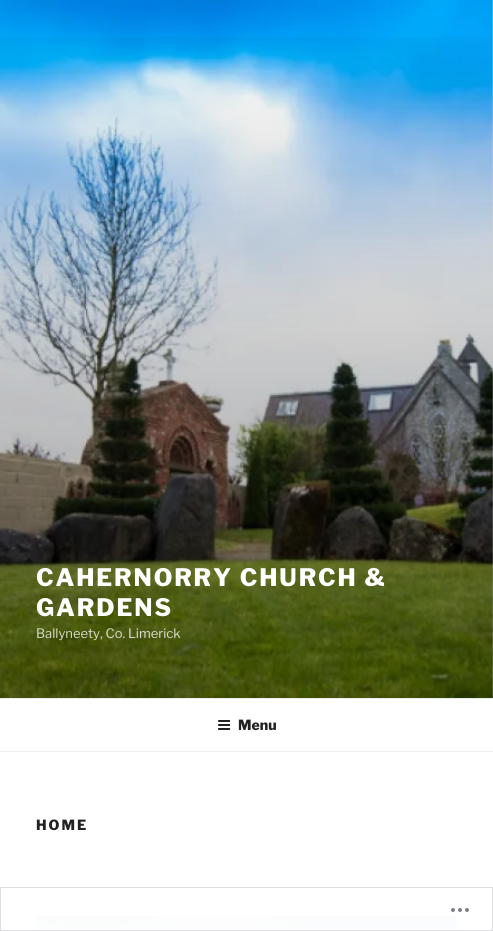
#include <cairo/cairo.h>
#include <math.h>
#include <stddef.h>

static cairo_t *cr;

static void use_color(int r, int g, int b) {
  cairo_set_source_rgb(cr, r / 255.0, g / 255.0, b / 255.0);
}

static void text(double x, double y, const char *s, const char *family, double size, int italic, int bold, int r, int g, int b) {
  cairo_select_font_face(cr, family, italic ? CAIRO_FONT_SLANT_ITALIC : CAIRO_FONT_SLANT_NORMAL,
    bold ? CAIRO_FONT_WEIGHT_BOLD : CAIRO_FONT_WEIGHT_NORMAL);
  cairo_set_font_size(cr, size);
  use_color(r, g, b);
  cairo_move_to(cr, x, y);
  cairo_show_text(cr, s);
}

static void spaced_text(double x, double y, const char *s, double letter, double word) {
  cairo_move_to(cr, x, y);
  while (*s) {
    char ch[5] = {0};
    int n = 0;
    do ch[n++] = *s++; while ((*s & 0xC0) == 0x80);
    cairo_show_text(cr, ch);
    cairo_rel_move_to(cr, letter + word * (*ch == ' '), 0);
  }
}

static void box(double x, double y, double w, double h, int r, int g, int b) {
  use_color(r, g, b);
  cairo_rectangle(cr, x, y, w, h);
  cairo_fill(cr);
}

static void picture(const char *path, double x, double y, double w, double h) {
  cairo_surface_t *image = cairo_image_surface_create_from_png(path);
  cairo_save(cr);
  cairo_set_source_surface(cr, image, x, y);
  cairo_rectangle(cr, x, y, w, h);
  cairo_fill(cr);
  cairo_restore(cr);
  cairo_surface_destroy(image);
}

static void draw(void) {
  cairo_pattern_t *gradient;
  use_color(255, 255, 255);
  cairo_paint(cr);
  picture("img_01.png", 0, 0, 493, 698);
  gradient = cairo_pattern_create_linear(246, 0, 247, 698);
  cairo_pattern_add_color_stop_rgba(gradient, 0, 0, 0, 0, 0);
  cairo_pattern_add_color_stop_rgba(gradient, 0.75, 0, 0, 0, 0.3);
  cairo_pattern_add_color_stop_rgba(gradient, 1, 0, 0, 0, 0.3);
  cairo_set_source(cr, gradient);
  cairo_pattern_destroy(gradient);
  cairo_rectangle(cr, 0, 37, 493, 661);
  cairo_fill(cr);
  box(0, 698, 493, 1, 238, 238, 238);
  box(0, 751, 493, 1, 238, 238, 238);
  picture("img_02.png", 218, 720, 13, 10);
  picture("img_03.png", 36, 916, 421, 15);
  cairo_set_source_rgba(cr, 1, 1, 1, 0.98);
  cairo_rectangle(cr, 36, 916, 421, 15);
  cairo_fill(cr);
  cairo_rectangle(cr, 0.5, 887.5, 492, 43);
  cairo_set_source_rgba(cr, 0.863, 0.863, 0.871, 0.98);
  cairo_set_line_width(cr, 1);
  cairo_stroke(cr);
  picture("img_04.png", 451, 908, 18, 4);
  cairo_select_font_face(cr, "Libre Franklin Thin", CAIRO_FONT_SLANT_NORMAL, CAIRO_FONT_WEIGHT_NORMAL);
  cairo_set_font_size(cr, 24);
  use_color(255, 255, 255);
  spaced_text(36, 586, "CAHERNORRY CHURCH &", 1.9, 0);
  spaced_text(36, 616, "GARDENS", 1.9, 0);
  text(36, 638, "Ballyneety, Co. Limerick", "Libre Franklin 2 Thin", 13, 0, 0, 218, 222, 207);
  text(238, 730, "Menu", "Libre Franklin Thin", 14, 0, 0, 34, 34, 34);
  spaced_text(36, 830, "HOME", 2, 0);
}

int main(void) {
  cairo_surface_t *surface = cairo_image_surface_create(CAIRO_FORMAT_RGB24, 493, 931);
  cr = cairo_create(surface);
  cairo_font_options_t *options = cairo_font_options_create();
  cairo_font_options_set_hint_metrics(options, CAIRO_HINT_METRICS_OFF);
  cairo_font_options_set_hint_style(options, CAIRO_HINT_STYLE_NONE);
  cairo_set_font_options(cr, options);
  cairo_set_miter_limit(cr, 4);
  draw();
  cairo_surface_write_to_png(surface, "out.png");
  cairo_font_options_destroy(options);
  cairo_destroy(cr);
  cairo_surface_destroy(surface);
  return 0;
}
